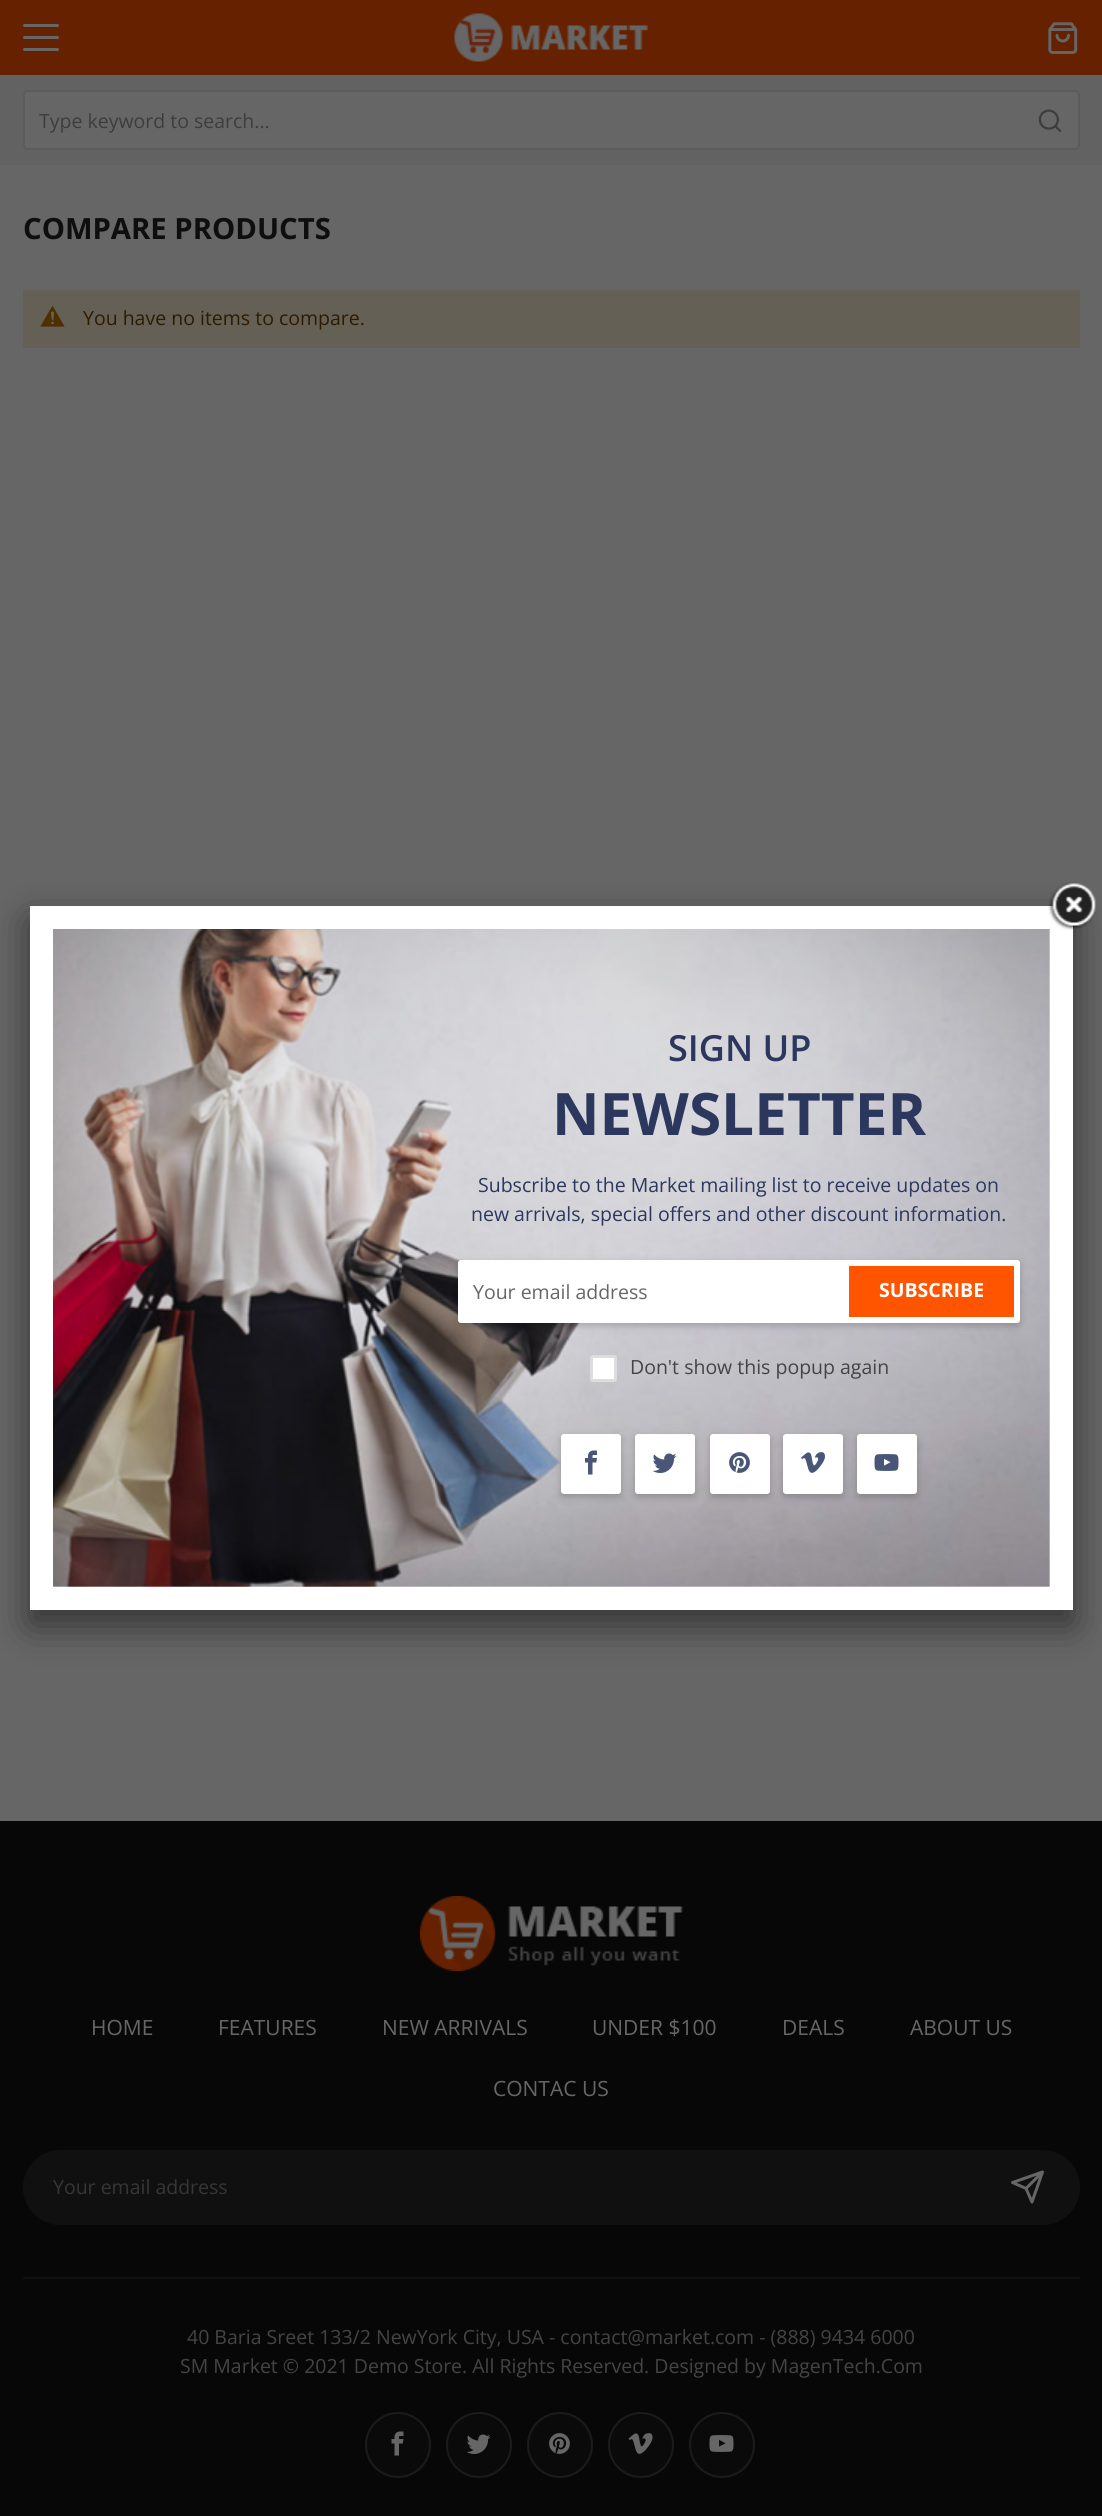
#include <cairo/cairo.h>
#include <math.h>
#include <stddef.h>

static cairo_t *cr;

static void use_color(int r, int g, int b) {
  cairo_set_source_rgb(cr, r / 255.0, g / 255.0, b / 255.0);
}

static void text(double x, double y, const char *s, const char *family, double size, int italic, int bold, int r, int g, int b) {
  cairo_select_font_face(cr, family, italic ? CAIRO_FONT_SLANT_ITALIC : CAIRO_FONT_SLANT_NORMAL,
    bold ? CAIRO_FONT_WEIGHT_BOLD : CAIRO_FONT_WEIGHT_NORMAL);
  cairo_set_font_size(cr, size);
  use_color(r, g, b);
  cairo_move_to(cr, x, y);
  cairo_show_text(cr, s);
}

static void box(double x, double y, double w, double h, int r, int g, int b) {
  use_color(r, g, b);
  cairo_rectangle(cr, x, y, w, h);
  cairo_fill(cr);
}

static void round_rect(double x, double y, double w, double h, double r) {
  cairo_new_sub_path(cr);
  cairo_arc(cr, x + w - r, y + h - r, r, 0, M_PI / 2);
  cairo_arc(cr, x + r, y + h - r, r, M_PI / 2, M_PI);
  cairo_arc(cr, x + r, y + r, r, M_PI, 1.5 * M_PI);
  cairo_arc(cr, x + w - r, y + r, r, 1.5 * M_PI, 2 * M_PI);
  cairo_close_path(cr);
}

static void shadow(double x, double y, double w, double h, double r, double blur, double alpha) {
  cairo_push_group_with_content(cr, CAIRO_CONTENT_ALPHA);
  cairo_set_operator(cr, CAIRO_OPERATOR_SOURCE);
  for (int i = 15; i >= -15 && fmin(w, h) + blur * i / 3 > 0; i -= 2) {
    double e = blur * i / 6;
    cairo_set_source_rgba(cr, 0, 0, 0, alpha * erfc((i - 1) / 8.5) / 2);
    round_rect(x - e, y - e, w + 2 * e, h + 2 * e, fmax(0, fmin(r + e + blur * .6, fmin(w, h) / 2 + e)));
    cairo_fill(cr);
  }
  cairo_pattern_t *soft = cairo_pop_group(cr);
  cairo_mask(cr, soft);
  cairo_pattern_destroy(soft);
}

static void picture(const char *path, double x, double y, double w, double h) {
  cairo_surface_t *image = cairo_image_surface_create_from_png(path);
  cairo_save(cr);
  cairo_set_source_surface(cr, image, x, y);
  cairo_rectangle(cr, x, y, w, h);
  cairo_fill(cr);
  cairo_restore(cr);
  cairo_surface_destroy(image);
}

static void draw(void) {
  use_color(102, 102, 102);
  cairo_paint(cr);
  box(0, 0, 1102, 75, 102, 34, 0);
  use_color(102, 102, 102);
  round_rect(23, 24, 36, 3, 1.5);
  cairo_fill(cr);
  round_rect(23, 36, 36, 3, 1.5);
  cairo_fill(cr);
  round_rect(23, 48, 36, 3, 1.5);
  cairo_fill(cr);
  picture("img_01.png", 454, 13, 194, 49);
  picture("img_02.png", 1048, 22, 30, 32);
  box(0, 75, 1102, 90, 98, 98, 98);
  use_color(102, 102, 102);
  round_rect(24, 91, 1055, 58, 4);
  cairo_fill_preserve(cr);
  use_color(92, 92, 92);
  cairo_stroke(cr);
  picture("img_03.png", 1038, 109, 24, 23);
  box(23, 290, 1057, 58, 101, 96, 85);
  picture("img_04.png", 40, 305, 25, 22);
  box(0, 1821, 1102, 695, 7, 7, 7);
  picture("img_05.png", 420, 1896, 263, 75);
  use_color(16, 16, 16);
  round_rect(23, 2150, 1057, 75, 37.5);
  cairo_fill(cr);
  picture("img_06.png", 1011, 2170, 33, 34);
  box(23, 2277, 1057, 2, 16, 16, 16);
  use_color(10, 10, 10);
  cairo_arc(cr, 398, 2445, 32, 0, 2 * M_PI);
  cairo_fill_preserve(cr);
  use_color(27, 27, 27);
  cairo_stroke(cr);
  picture("img_07.png", 391, 2431, 13, 25);
  use_color(10, 10, 10);
  cairo_arc(cr, 479, 2445, 32, 0, 2 * M_PI);
  cairo_fill_preserve(cr);
  use_color(27, 27, 27);
  cairo_stroke(cr);
  picture("img_08.png", 466, 2434, 25, 20);
  use_color(10, 10, 10);
  cairo_arc(cr, 560, 2445, 32, 0, 2 * M_PI);
  cairo_fill_preserve(cr);
  use_color(27, 27, 27);
  cairo_stroke(cr);
  picture("img_09.png", 549, 2433, 21, 21);
  use_color(10, 10, 10);
  cairo_arc(cr, 641, 2445, 32, 0, 2 * M_PI);
  cairo_fill_preserve(cr);
  use_color(27, 27, 27);
  cairo_stroke(cr);
  picture("img_10.png", 628, 2433, 25, 21);
  use_color(10, 10, 10);
  cairo_arc(cr, 722, 2445, 32, 0, 2 * M_PI);
  cairo_fill_preserve(cr);
  use_color(27, 27, 27);
  cairo_stroke(cr);
  picture("img_11.png", 709, 2435, 25, 17);
  use_color(0, 0, 0);
  shadow(30, 921, 1043, 704, 0, 19, 0.5);
  box(30, 906, 1043, 704, 255, 255, 255);
  picture("img_13.png", 53, 929, 997, 658);
  picture("img_12.png", 1048, 882, 48, 48);
  use_color(0, 0, 0);
  shadow(458, 1263, 562, 63, 3, 4, 0.2);
  use_color(255, 255, 255);
  round_rect(458, 1260, 562, 63, 3);
  cairo_fill(cr);
  box(849, 1266, 165, 51, 255, 85, 0);
  use_color(255, 255, 255);
  round_rect(591.5, 1356.5, 24, 24, 1.5);
  cairo_fill_preserve(cr);
  use_color(221, 221, 221);
  cairo_set_line_width(cr, 3);
  cairo_stroke(cr);
  use_color(0, 0, 0);
  shadow(561, 1437, 60, 60, 3, 4, 0.2);
  use_color(255, 255, 255);
  round_rect(561, 1434, 60, 60, 3);
  cairo_fill(cr);
  picture("img_14.png", 585, 1450, 12, 25);
  use_color(0, 0, 0);
  shadow(635, 1437, 60, 60, 3, 4, 0.2);
  use_color(255, 255, 255);
  round_rect(635, 1434, 60, 60, 3);
  cairo_fill(cr);
  picture("img_15.png", 652, 1453, 25, 20);
  use_color(0, 0, 0);
  shadow(710, 1437, 60, 60, 3, 4, 0.2);
  use_color(255, 255, 255);
  round_rect(710, 1434, 60, 60, 3);
  cairo_fill(cr);
  picture("img_16.png", 729, 1452, 21, 21);
  use_color(0, 0, 0);
  shadow(783, 1437, 60, 60, 3, 4, 0.2);
  use_color(255, 255, 255);
  round_rect(783, 1434, 60, 60, 3);
  cairo_fill(cr);
  picture("img_17.png", 801, 1452, 24, 21);
  use_color(0, 0, 0);
  shadow(857, 1437, 60, 60, 3, 4, 0.2);
  use_color(255, 255, 255);
  round_rect(857, 1434, 60, 60, 3);
  cairo_fill(cr);
  picture("img_18.png", 874, 1454, 25, 17);
  text(39, 128, "Type keyword to search...", "Open Sans", 19.5, 0, 0, 61, 61, 61);
  text(23, 239, "COMPARE PRODUCTS", "Open Sans", 29.25, 0, 1, 14, 14, 14);
  text(83, 325, "You have no items to compare.", "Open Sans", 19.5, 0, 0, 44, 27, 0);
  text(91, 2035, "HOME", "Open Sans", 21, 0, 0, 102, 102, 102);
  text(218, 2035, "FEATURES", "Open Sans", 21, 0, 0, 102, 102, 102);
  text(382, 2035, "NEW ARRIVALS", "Open Sans", 21, 0, 0, 102, 102, 102);
  text(592, 2035, "UNDER $100", "Open Sans", 21, 0, 0, 102, 102, 102);
  text(782, 2035, "DEALS", "Open Sans", 21, 0, 0, 102, 102, 102);
  text(910, 2035, "ABOUT US", "Open Sans", 21, 0, 0, 102, 102, 102);
  text(493, 2096, "CONTAC US", "Open Sans", 21, 0, 0, 102, 102, 102);
  text(53, 2194, "Your email address", "Open Sans", 19.5, 0, 0, 54, 54, 54);
  text(187, 2344, "40 Baria Sreet 133/2 NewYork City, USA - contact@market.com - (888) 9434 6000", "Open Sans", 19.5, 0, 0, 68, 68, 68);
  text(180, 2373, "SM Market © 2021 Demo Store. All Rights Reserved. Designed by MagenTech.Com", "Open Sans", 19.5, 0, 0, 68, 68, 68);
  text(668, 1061, "SIGN UP", "Open Sans SemiBold", 36, 0, 0, 43, 55, 93);
  text(552, 1135, "NEWSLETTER", "Open Sans", 58.5, 0, 1, 43, 55, 93);
  text(478, 1192, "Subscribe to the Market mailing list to receive updates on", "Open Sans", 19.5, 0, 0, 43, 55, 93);
  text(471, 1221, "new arrivals, special offers and other discount information.", "Open Sans", 19.5, 0, 0, 43, 55, 93);
  text(473, 1299, "Your email address", "Open Sans", 19.5, 0, 0, 102, 102, 102);
  text(879, 1297, "SUBSCRIBE", "Open Sans", 19.5, 0, 1, 255, 255, 255);
  text(630, 1374, "Don't show this popup again", "Open Sans", 19.5, 0, 0, 68, 68, 68);
}

int main(void) {
  cairo_surface_t *surface = cairo_image_surface_create(CAIRO_FORMAT_RGB24, 1102, 2516);
  cr = cairo_create(surface);
  cairo_font_options_t *options = cairo_font_options_create();
  cairo_font_options_set_hint_metrics(options, CAIRO_HINT_METRICS_OFF);
  cairo_font_options_set_hint_style(options, CAIRO_HINT_STYLE_NONE);
  cairo_set_font_options(cr, options);
  cairo_set_miter_limit(cr, 4);
  draw();
  cairo_surface_write_to_png(surface, "out.png");
  cairo_font_options_destroy(options);
  cairo_destroy(cr);
  cairo_surface_destroy(surface);
  return 0;
}
